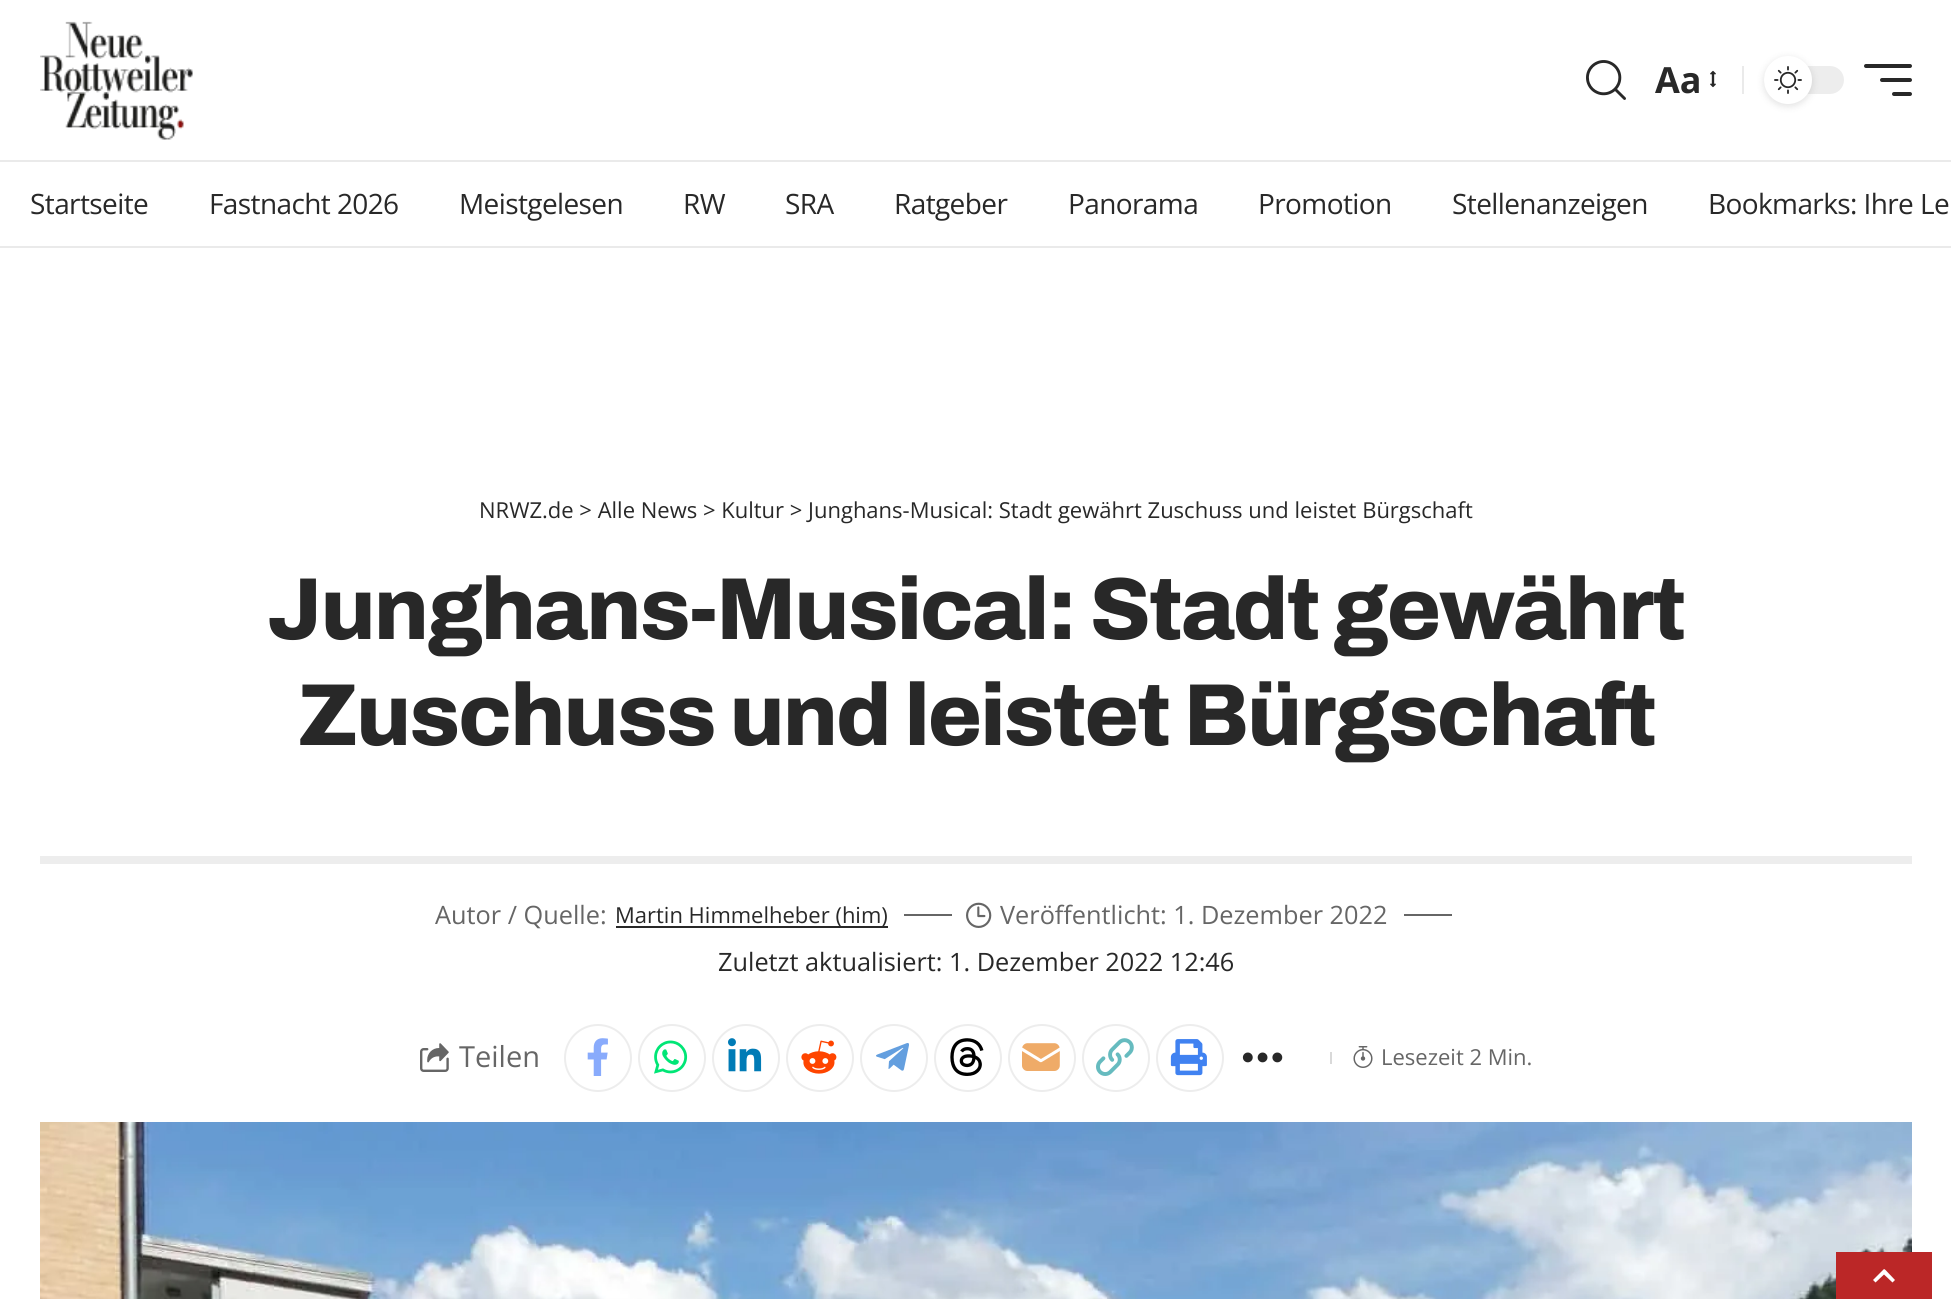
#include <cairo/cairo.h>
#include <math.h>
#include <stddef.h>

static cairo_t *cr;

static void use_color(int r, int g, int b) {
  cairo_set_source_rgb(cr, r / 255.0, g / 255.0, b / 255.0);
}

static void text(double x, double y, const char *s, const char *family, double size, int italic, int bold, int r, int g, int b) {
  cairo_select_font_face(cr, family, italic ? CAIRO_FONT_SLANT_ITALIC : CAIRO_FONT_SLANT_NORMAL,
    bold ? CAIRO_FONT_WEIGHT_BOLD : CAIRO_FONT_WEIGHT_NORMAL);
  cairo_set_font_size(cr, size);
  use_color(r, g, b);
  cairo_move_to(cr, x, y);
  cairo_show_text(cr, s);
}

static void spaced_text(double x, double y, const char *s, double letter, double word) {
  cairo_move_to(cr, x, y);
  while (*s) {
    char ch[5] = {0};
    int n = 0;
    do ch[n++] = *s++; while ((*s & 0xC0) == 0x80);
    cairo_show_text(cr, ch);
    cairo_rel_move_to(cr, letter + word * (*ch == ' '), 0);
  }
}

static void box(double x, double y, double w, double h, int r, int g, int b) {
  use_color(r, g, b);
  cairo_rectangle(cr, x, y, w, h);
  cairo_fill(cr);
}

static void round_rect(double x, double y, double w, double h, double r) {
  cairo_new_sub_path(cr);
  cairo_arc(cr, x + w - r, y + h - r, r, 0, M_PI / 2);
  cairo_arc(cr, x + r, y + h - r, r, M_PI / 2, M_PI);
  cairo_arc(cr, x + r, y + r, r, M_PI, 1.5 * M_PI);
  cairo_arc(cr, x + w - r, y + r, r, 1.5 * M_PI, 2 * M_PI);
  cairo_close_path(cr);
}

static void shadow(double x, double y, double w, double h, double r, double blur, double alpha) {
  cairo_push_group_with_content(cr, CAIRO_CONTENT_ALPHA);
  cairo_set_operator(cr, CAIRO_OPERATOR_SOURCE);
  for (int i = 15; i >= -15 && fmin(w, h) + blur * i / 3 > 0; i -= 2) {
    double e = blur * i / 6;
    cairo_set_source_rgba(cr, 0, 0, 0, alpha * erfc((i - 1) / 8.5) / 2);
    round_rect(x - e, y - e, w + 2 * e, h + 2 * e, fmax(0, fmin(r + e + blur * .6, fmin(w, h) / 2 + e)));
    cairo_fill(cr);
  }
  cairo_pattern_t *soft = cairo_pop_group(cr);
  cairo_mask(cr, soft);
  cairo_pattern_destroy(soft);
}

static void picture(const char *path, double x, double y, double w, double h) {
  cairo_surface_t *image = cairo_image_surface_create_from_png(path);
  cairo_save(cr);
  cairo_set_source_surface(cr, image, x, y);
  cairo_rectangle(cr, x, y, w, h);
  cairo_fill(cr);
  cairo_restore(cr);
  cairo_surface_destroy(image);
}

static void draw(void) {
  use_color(255, 255, 255);
  cairo_paint(cr);
  box(0, 246, 1951, 2, 234, 234, 234);
  picture("img_01.png", 40, 21, 153, 119);
  picture("img_02.png", 1586, 60, 40, 40);
  picture("img_03.png", 1710, 70, 6, 18);
  box(1742, 66, 2, 28, 234, 234, 234);
  use_color(237, 237, 237);
  round_rect(1764, 66, 80, 28, 14);
  cairo_fill(cr);
  use_color(0, 0, 0);
  shadow(1764, 58, 48, 48, 24, 4, 0.12);
  use_color(255, 255, 255);
  cairo_arc(cr, 1788, 80, 24, 0, 2 * M_PI);
  cairo_fill(cr);
  picture("img_04.png", 1774, 66, 28, 28);
  use_color(40, 40, 40);
  round_rect(1864, 64, 48, 4, 2);
  cairo_fill(cr);
  round_rect(1880, 78, 32, 4, 2);
  cairo_fill(cr);
  round_rect(1892, 92, 20, 4, 2);
  cairo_fill(cr);
  box(0, 160, 1951, 2, 234, 234, 234);
  box(40, 856, 1872, 8, 237, 237, 237);
  box(616, 926, 272, 2, 40, 40, 40);
  box(904, 914, 48, 2, 102, 102, 102);
  picture("img_05.png", 966, 902, 26, 26);
  box(1404, 914, 48, 2, 102, 102, 102);
  picture("img_06.png", 420, 1043, 29, 29);
  cairo_arc(cr, 598, 1058, 33, 0, 2 * M_PI);
  use_color(237, 237, 237);
  cairo_stroke(cr);
  picture("img_07.png", 587, 1038, 21, 38);
  cairo_arc(cr, 672, 1058, 33, 0, 2 * M_PI);
  cairo_stroke(cr);
  picture("img_08.png", 654, 1040, 34, 34);
  cairo_arc(cr, 746, 1058, 33, 0, 2 * M_PI);
  cairo_stroke(cr);
  picture("img_09.png", 728, 1038, 34, 34);
  cairo_arc(cr, 820, 1058, 33, 0, 2 * M_PI);
  cairo_stroke(cr);
  picture("img_10.png", 801, 1040, 36, 34);
  cairo_arc(cr, 894, 1058, 33, 0, 2 * M_PI);
  cairo_stroke(cr);
  picture("img_11.png", 876, 1043, 33, 28);
  cairo_arc(cr, 968, 1058, 33, 0, 2 * M_PI);
  cairo_stroke(cr);
  picture("img_12.png", 950, 1038, 34, 38);
  cairo_arc(cr, 1042, 1058, 33, 0, 2 * M_PI);
  cairo_stroke(cr);
  picture("img_13.png", 1022, 1043, 38, 28);
  cairo_arc(cr, 1116, 1058, 33, 0, 2 * M_PI);
  cairo_stroke(cr);
  picture("img_14.png", 1096, 1038, 38, 38);
  cairo_arc(cr, 1190, 1058, 33, 0, 2 * M_PI);
  cairo_stroke(cr);
  picture("img_15.png", 1170, 1039, 37, 37);
  picture("img_16.png", 1242, 1052, 41, 11);
  box(1330, 1052, 2, 12, 217, 217, 217);
  picture("img_17.png", 1353, 1046, 20, 22);
  picture("img_18.png", 40, 1122, 1872, 177);
  box(1836, 1252, 96, 47, 187, 39, 39);
  use_color(255, 255, 255);
  cairo_new_path(cr);
  cairo_move_to(cr, 1885.5, 1270);
  cairo_line_to(cr, 1884, 1269);
  cairo_line_to(cr, 1873, 1280);
  cairo_line_to(cr, 1875.5, 1282.5);
  cairo_line_to(cr, 1884, 1274.5);
  cairo_line_to(cr, 1892.5, 1282.5);
  cairo_line_to(cr, 1895, 1280);
  cairo_close_path(cr);
  cairo_fill(cr);
  text(1655, 93, "Aa", "Open Sans", 36, 0, 1, 40, 40, 40);
  cairo_select_font_face(cr, "Open Sans", CAIRO_FONT_SLANT_NORMAL, CAIRO_FONT_WEIGHT_NORMAL);
  cairo_set_font_size(cr, 28);
  spaced_text(30, 214, "Startseite", -0.6, 0);
  spaced_text(209, 214, "Fastnacht 2026", -0.6, 0);
  spaced_text(459, 214, "Meistgelesen", -0.6, 0);
  spaced_text(683, 214, "RW", -0.6, 0);
  spaced_text(785, 214, "SRA", -0.6, 0);
  spaced_text(894, 214, "Ratgeber", -0.6, 0);
  spaced_text(1068, 214, "Panorama", -0.6, 0);
  spaced_text(1258, 214, "Promotion", -0.6, 0);
  spaced_text(1452, 214, "Stellenanzeigen", -0.6, 0);
  spaced_text(1708, 214, "Bookmarks: Ihre Le", -0.6, 0);
  text(479, 518, "NRWZ.de > Alle News > Kultur > Junghans-Musical: Stadt gewährt Zuschuss und leistet Bürgschaft", "Open Sans", 22, 0, 0, 40, 40, 40);
  cairo_select_font_face(cr, "Archivo ExtraBold", CAIRO_FONT_SLANT_NORMAL, CAIRO_FONT_WEIGHT_NORMAL);
  cairo_set_font_size(cr, 88);
  spaced_text(267, 639, "Junghans-Musical: Stadt gewährt", -2, 0);
  spaced_text(298, 745, "Zuschuss und leistet Bürgschaft", -2, 0);
  text(435, 924, "Autor / Quelle:", "Open Sans", 25.3, 0, 0, 102, 102, 102);
  text(615, 923, "Martin Himmelheber (him)", "Open Sans", 22, 0, 0, 40, 40, 40);
  text(1000, 924, "Veröffentlicht: 1. Dezember 2022", "Open Sans", 25.3, 0, 0, 102, 102, 102);
  text(718, 971, "Zuletzt aktualisiert: 1. Dezember 2022 12:46", "Open Sans", 25.3, 0, 0, 40, 40, 40);
  text(459, 1067, "Teilen", "Open Sans", 29, 0, 0, 102, 102, 102);
  text(1381, 1065, "Lesezeit 2 Min.", "Open Sans", 22, 0, 0, 102, 102, 102);
}

int main(void) {
  cairo_surface_t *surface = cairo_image_surface_create(CAIRO_FORMAT_RGB24, 1951, 1299);
  cr = cairo_create(surface);
  cairo_font_options_t *options = cairo_font_options_create();
  cairo_font_options_set_hint_metrics(options, CAIRO_HINT_METRICS_OFF);
  cairo_font_options_set_hint_style(options, CAIRO_HINT_STYLE_NONE);
  cairo_set_font_options(cr, options);
  cairo_set_miter_limit(cr, 4);
  draw();
  cairo_surface_write_to_png(surface, "out.png");
  cairo_font_options_destroy(options);
  cairo_destroy(cr);
  cairo_surface_destroy(surface);
  return 0;
}
